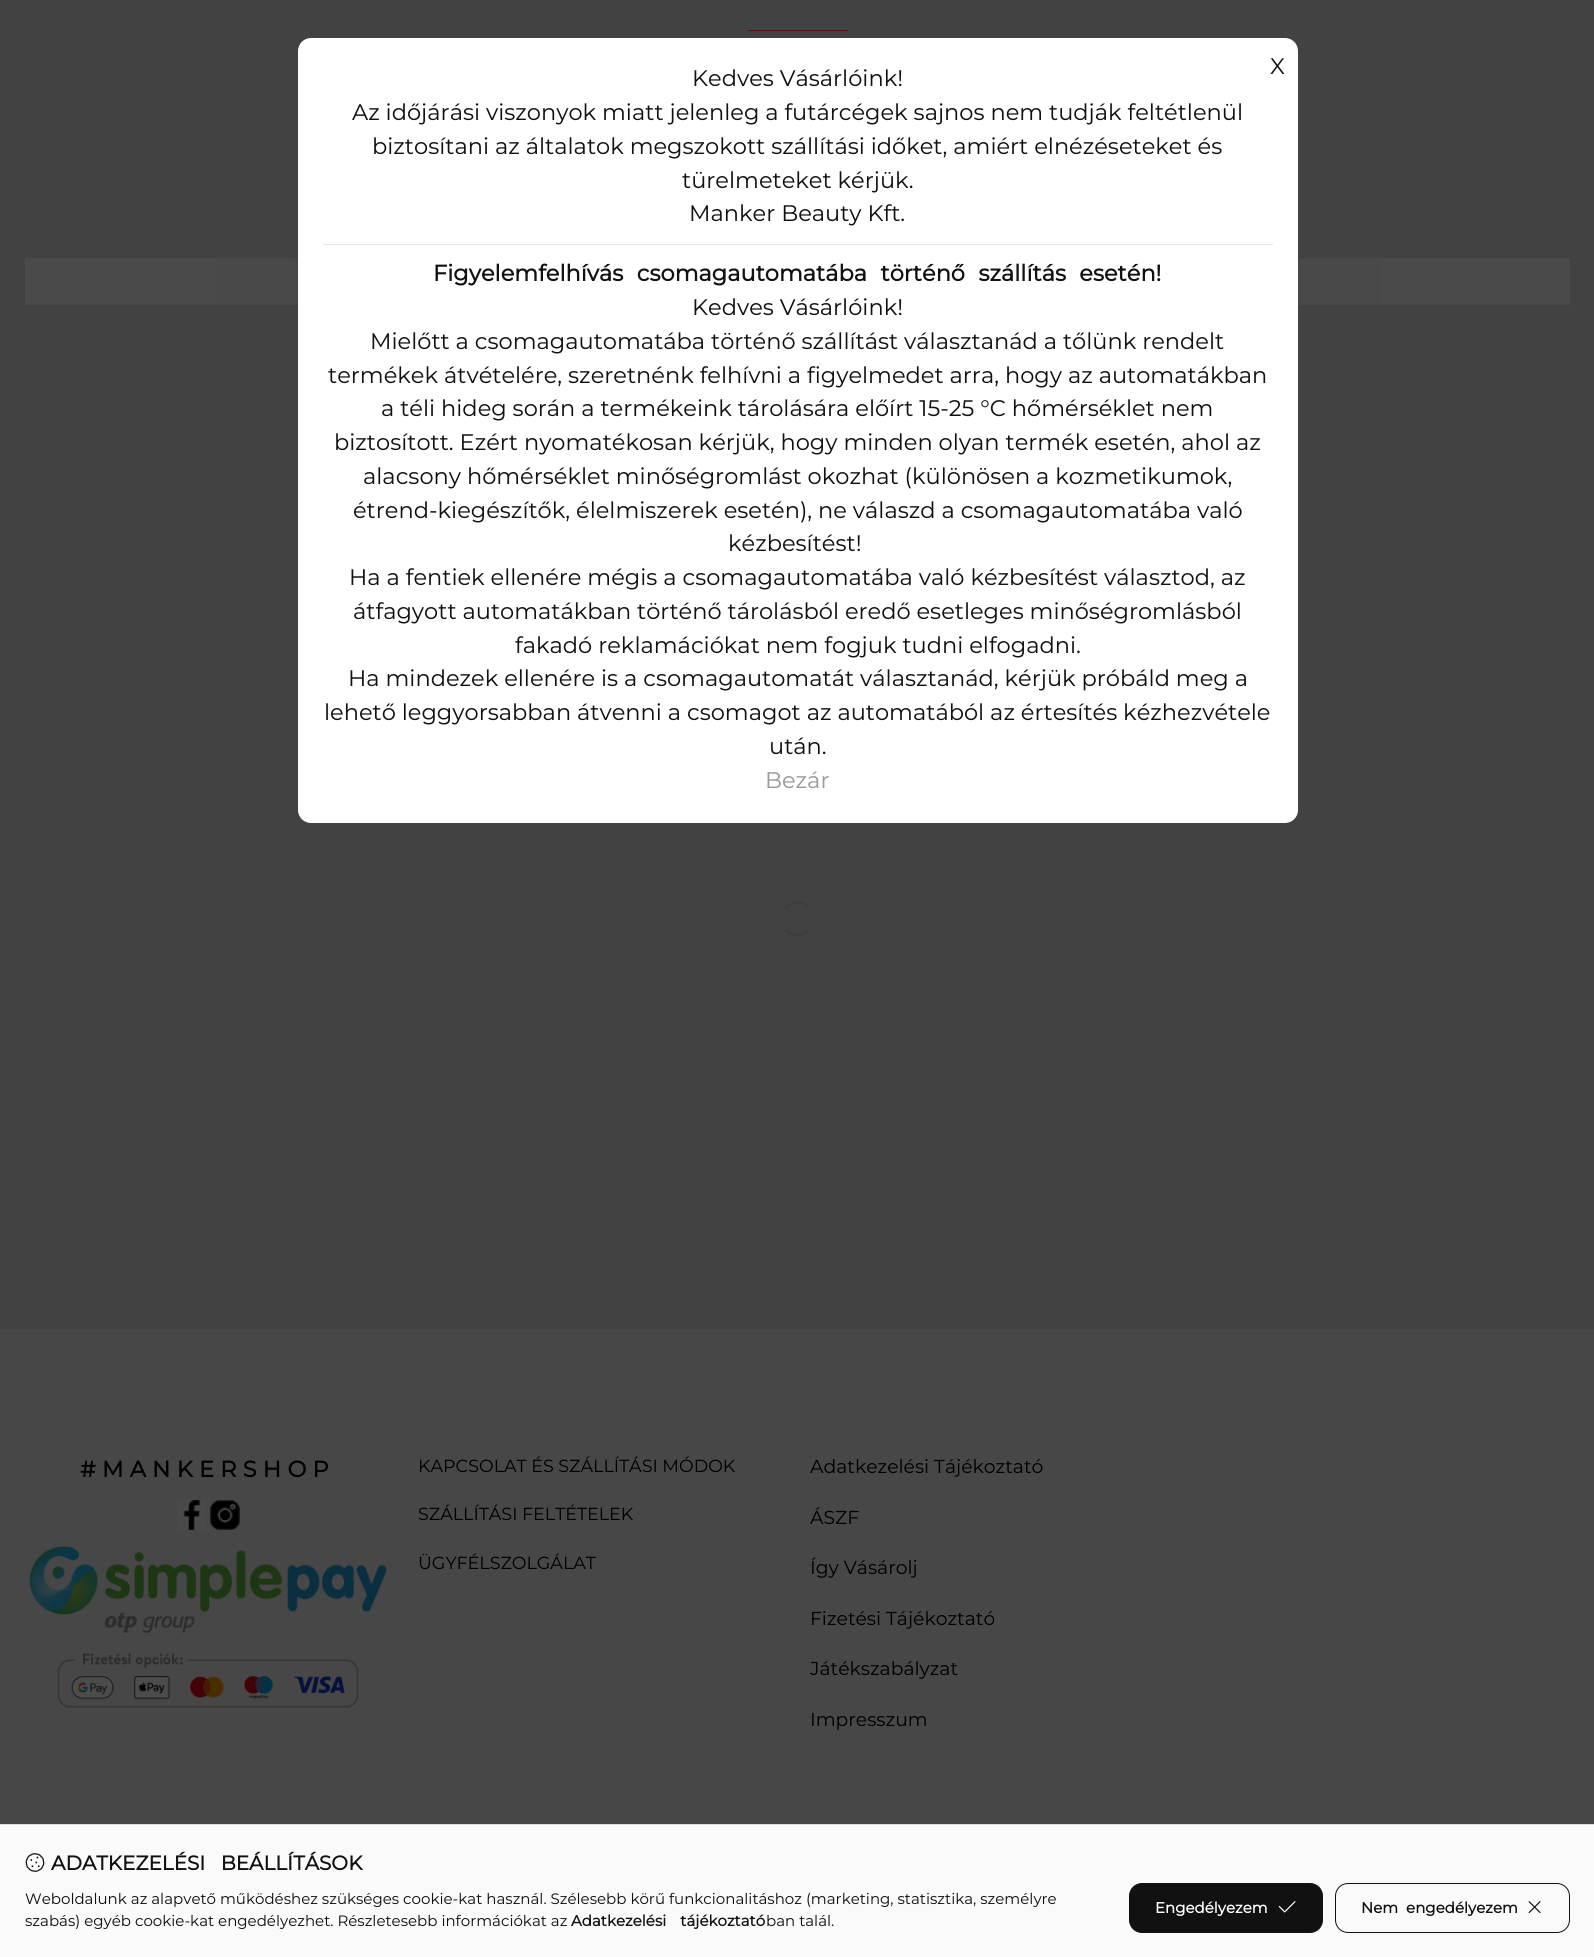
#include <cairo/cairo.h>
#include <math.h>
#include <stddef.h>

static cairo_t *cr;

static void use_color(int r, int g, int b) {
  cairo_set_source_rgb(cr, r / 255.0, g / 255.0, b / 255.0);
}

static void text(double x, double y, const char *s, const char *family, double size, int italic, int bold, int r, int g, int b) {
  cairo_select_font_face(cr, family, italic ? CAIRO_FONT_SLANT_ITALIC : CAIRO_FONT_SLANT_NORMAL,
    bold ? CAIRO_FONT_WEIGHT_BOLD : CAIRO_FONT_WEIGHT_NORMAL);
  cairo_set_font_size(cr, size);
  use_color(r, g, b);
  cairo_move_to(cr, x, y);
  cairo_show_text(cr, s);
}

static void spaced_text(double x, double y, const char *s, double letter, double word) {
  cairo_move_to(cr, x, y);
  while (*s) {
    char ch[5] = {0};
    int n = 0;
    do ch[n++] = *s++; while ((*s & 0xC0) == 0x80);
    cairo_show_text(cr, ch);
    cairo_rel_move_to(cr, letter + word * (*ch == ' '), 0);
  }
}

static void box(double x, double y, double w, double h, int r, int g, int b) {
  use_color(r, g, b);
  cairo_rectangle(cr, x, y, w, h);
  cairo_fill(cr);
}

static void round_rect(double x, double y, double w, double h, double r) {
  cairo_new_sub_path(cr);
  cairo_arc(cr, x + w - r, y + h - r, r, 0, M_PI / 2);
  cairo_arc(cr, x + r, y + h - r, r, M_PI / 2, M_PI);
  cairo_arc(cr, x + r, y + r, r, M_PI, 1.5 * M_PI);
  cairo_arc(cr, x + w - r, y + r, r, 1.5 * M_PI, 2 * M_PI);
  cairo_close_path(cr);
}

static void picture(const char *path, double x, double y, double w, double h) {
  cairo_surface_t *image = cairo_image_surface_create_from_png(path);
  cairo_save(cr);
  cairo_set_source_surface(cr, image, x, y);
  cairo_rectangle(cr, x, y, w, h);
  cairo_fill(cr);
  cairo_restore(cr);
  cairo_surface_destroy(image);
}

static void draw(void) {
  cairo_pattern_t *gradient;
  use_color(66, 66, 66);
  cairo_paint(cr);
  box(748, 30, 100, 1, 77, 20, 20);
  gradient = cairo_pattern_create_linear(25, 281, 1570, 281);
  cairo_pattern_add_color_stop_rgba(gradient, 0.1, 0.29, 0.29, 0.29, 1);
  cairo_pattern_add_color_stop_rgba(gradient, 0.5, 0.259, 0.259, 0.259, 1);
  cairo_pattern_add_color_stop_rgba(gradient, 0.9, 0.29, 0.29, 0.29, 1);
  cairo_set_source(cr, gradient);
  cairo_pattern_destroy(gradient);
  cairo_rectangle(cr, 25, 258, 1545, 47);
  cairo_fill(cr);
  gradient = cairo_pattern_create_linear(798, 305, 798, 258);
  cairo_pattern_add_color_stop_rgba(gradient, 0, 0.29, 0.29, 0.29, 1);
  cairo_pattern_add_color_stop_rgba(gradient, 1, 0.29, 0.29, 0.29, 0);
  cairo_set_source(cr, gradient);
  cairo_pattern_destroy(gradient);
  cairo_rectangle(cr, 373, 274, 849, 31);
  cairo_fill(cr);
  cairo_new_path(cr);
  cairo_move_to(cr, 786, 907.5);
  cairo_curve_to(cr, 792.5, 901, 802.5, 901, 809, 907.5);
  cairo_move_to(cr, 809, 930);
  cairo_curve_to(cr, 802.5, 936.5, 792.5, 936.5, 786, 930);
  use_color(61, 61, 61);
  cairo_set_line_width(cr, 2.5);
  cairo_stroke(cr);
  use_color(255, 255, 255);
  round_rect(298, 38, 1000, 785, 13);
  cairo_fill(cr);
  box(323, 244, 950, 1, 230, 230, 230);
  box(0, 1329, 1594, 495, 71, 71, 71);
  picture("img_01.png", 177, 1500, 29, 30);
  picture("img_02.png", 210, 1500, 30, 30);
  picture("img_03.png", 29, 1546, 358, 162);
  box(0, 1825, 1594, 132, 250, 250, 250);
  box(0, 1824, 1594, 1, 221, 221, 221);
  picture("img_04.png", 25, 1853, 20, 19);
  use_color(17, 17, 17);
  round_rect(1129.5, 1883.5, 193, 49, 12.5);
  cairo_fill_preserve(cr);
  cairo_set_line_width(cr, 1);
  cairo_stroke(cr);
  picture("img_05.png", 1278, 1901, 18, 12);
  round_rect(1335.5, 1883.5, 234, 49, 12.5);
  cairo_stroke(cr);
  picture("img_06.png", 1528, 1901, 13, 12);
  text(1270, 74, "X", "Montserrat", 22.5, 0, 0, 17, 17, 17);
  text(692, 86, "Kedves Vásárlóink!", "Montserrat", 22.5, 0, 0, 17, 17, 17);
  text(352, 120, "Az időjárási viszonyok miatt jelenleg a futárcégek sajnos nem tudják feltétlenül", "Montserrat", 22.5, 0, 0, 17, 17, 17);
  text(372, 154, "biztosítani az általatok megszokott szállítási időket, amiért elnézéseteket és", "Montserrat", 22.5, 0, 0, 17, 17, 17);
  text(682, 188, "türelmeteket kérjük.", "Montserrat", 22.5, 0, 0, 17, 17, 17);
  text(689, 221, "Manker Beauty Kft.", "Montserrat", 22.5, 0, 0, 17, 17, 17);
  cairo_select_font_face(cr, "Montserrat", CAIRO_FONT_SLANT_NORMAL, CAIRO_FONT_WEIGHT_BOLD);
  spaced_text(433, 281, "Figyelemfelhívás csomagautomatába történő szállítás esetén!", 0, 7.5);
  text(692, 315, "Kedves Vásárlóink!", "Montserrat", 22.5, 0, 0, 17, 17, 17);
  text(370, 349, "Mielőtt a csomagautomatába történő szállítást választanád a tőlünk rendelt", "Montserrat", 22.5, 0, 0, 17, 17, 17);
  text(328, 383, "termékek átvételére, szeretnénk felhívni a figyelmedet arra, hogy az automatákban", "Montserrat", 22.5, 0, 0, 17, 17, 17);
  text(381, 416, "a téli hideg során a termékeink tárolására előírt 15-25 °C hőmérséklet nem", "Montserrat", 22.5, 0, 0, 17, 17, 17);
  text(334, 450, "biztosított. Ezért nyomatékosan kérjük, hogy minden olyan termék esetén, ahol az", "Montserrat", 22.5, 0, 0, 17, 17, 17);
  text(363, 484, "alacsony hőmérséklet minőségromlást okozhat (különösen a kozmetikumok,", "Montserrat", 22.5, 0, 0, 17, 17, 17);
  text(353, 518, "étrend-kiegészítők, élelmiszerek esetén), ne válaszd a csomagautomatába való", "Montserrat", 22.5, 0, 0, 17, 17, 17);
  text(728, 551, "kézbesítést!", "Montserrat", 22.5, 0, 0, 17, 17, 17);
  text(349, 585, "Ha a fentiek ellenére mégis a csomagautomatába való kézbesítést választod, az", "Montserrat", 22.5, 0, 0, 17, 17, 17);
  text(353, 619, "átfagyott automatákban történő tárolásból eredő esetleges minőségromlásból", "Montserrat", 22.5, 0, 0, 17, 17, 17);
  text(515, 653, "fakadó reklamációkat nem fogjuk tudni elfogadni.", "Montserrat", 22.5, 0, 0, 17, 17, 17);
  text(348, 686, "Ha mindezek ellenére is a csomagautomatát választanád, kérjük próbáld meg a", "Montserrat", 22.5, 0, 0, 17, 17, 17);
  text(324, 720, "lehető leggyorsabban átvenni a csomagot az automatából az értesítés kézhezvétele", "Montserrat", 22.5, 0, 0, 17, 17, 17);
  text(769, 754, "után.", "Montserrat", 22.5, 0, 0, 17, 17, 17);
  text(765, 788, "Bezár", "Montserrat", 22.5, 0, 0, 153, 153, 153);
  cairo_select_font_face(cr, "Montserrat", CAIRO_FONT_SLANT_NORMAL, CAIRO_FONT_WEIGHT_BOLD);
  use_color(0, 0, 0);
  spaced_text(80, 1477, "#MANKERSHOP", 6.25, 0);
  text(418, 1472, "KAPCSOLAT ÉS SZÁLLÍTÁSI MÓDOK", "Montserrat", 17.5, 0, 0, 0, 0, 0);
  text(418, 1520, "SZÁLLÍTÁSI FELTÉTELEK", "Montserrat", 17.5, 0, 0, 0, 0, 0);
  text(418, 1569, "ÜGYFÉLSZOLGÁLAT", "Montserrat", 17.5, 0, 0, 0, 0, 0);
  text(810, 1473, "Adatkezelési Tájékoztató", "Montserrat", 18.75, 0, 0, 0, 0, 0);
  text(810, 1524, "ÁSZF", "Montserrat", 18.75, 0, 0, 0, 0, 0);
  text(810, 1574, "Így Vásárolj", "Montserrat", 18.75, 0, 0, 0, 0, 0);
  text(810, 1625, "Fizetési Tájékoztató", "Montserrat", 18.75, 0, 0, 0, 0, 0);
  text(810, 1675, "Játékszabályzat", "Montserrat", 18.75, 0, 0, 0, 0, 0);
  text(810, 1726, "Impresszum", "Montserrat", 18.75, 0, 0, 0, 0, 0);
  cairo_select_font_face(cr, "Montserrat", CAIRO_FONT_SLANT_NORMAL, CAIRO_FONT_WEIGHT_BOLD);
  cairo_set_font_size(cr, 20);
  use_color(17, 17, 17);
  spaced_text(51, 1870, "ADATKEZELÉSI BEÁLLÍTÁSOK", 0, 10);
  text(25, 1904, "Weboldalunk az alapvető működéshez szükséges cookie-kat használ. Szélesebb körű funkcionalitáshoz (marketing, statisztika, személyre", "Montserrat", 15, 0, 0, 17, 17, 17);
  text(25, 1926, "szabás) egyéb cookie-kat engedélyezhet. Részletesebb információkat az", "Montserrat", 15, 0, 0, 17, 17, 17);
  cairo_select_font_face(cr, "Montserrat", CAIRO_FONT_SLANT_NORMAL, CAIRO_FONT_WEIGHT_BOLD);
  spaced_text(571, 1926, "Adatkezelési tájékoztató", 0, 10);
  text(766, 1926, "ban talál.", "Montserrat", 15, 0, 0, 17, 17, 17);
  text(1155, 1913, "Engedélyezem", "Montserrat", 15, 0, 1, 255, 255, 255);
  use_color(17, 17, 17);
  spaced_text(1361, 1913, "Nem engedélyezem", 0, 4);
}

int main(void) {
  cairo_surface_t *surface = cairo_image_surface_create(CAIRO_FORMAT_RGB24, 1594, 1957);
  cr = cairo_create(surface);
  cairo_font_options_t *options = cairo_font_options_create();
  cairo_font_options_set_hint_metrics(options, CAIRO_HINT_METRICS_OFF);
  cairo_font_options_set_hint_style(options, CAIRO_HINT_STYLE_NONE);
  cairo_set_font_options(cr, options);
  cairo_set_miter_limit(cr, 4);
  draw();
  cairo_surface_write_to_png(surface, "out.png");
  cairo_font_options_destroy(options);
  cairo_destroy(cr);
  cairo_surface_destroy(surface);
  return 0;
}
